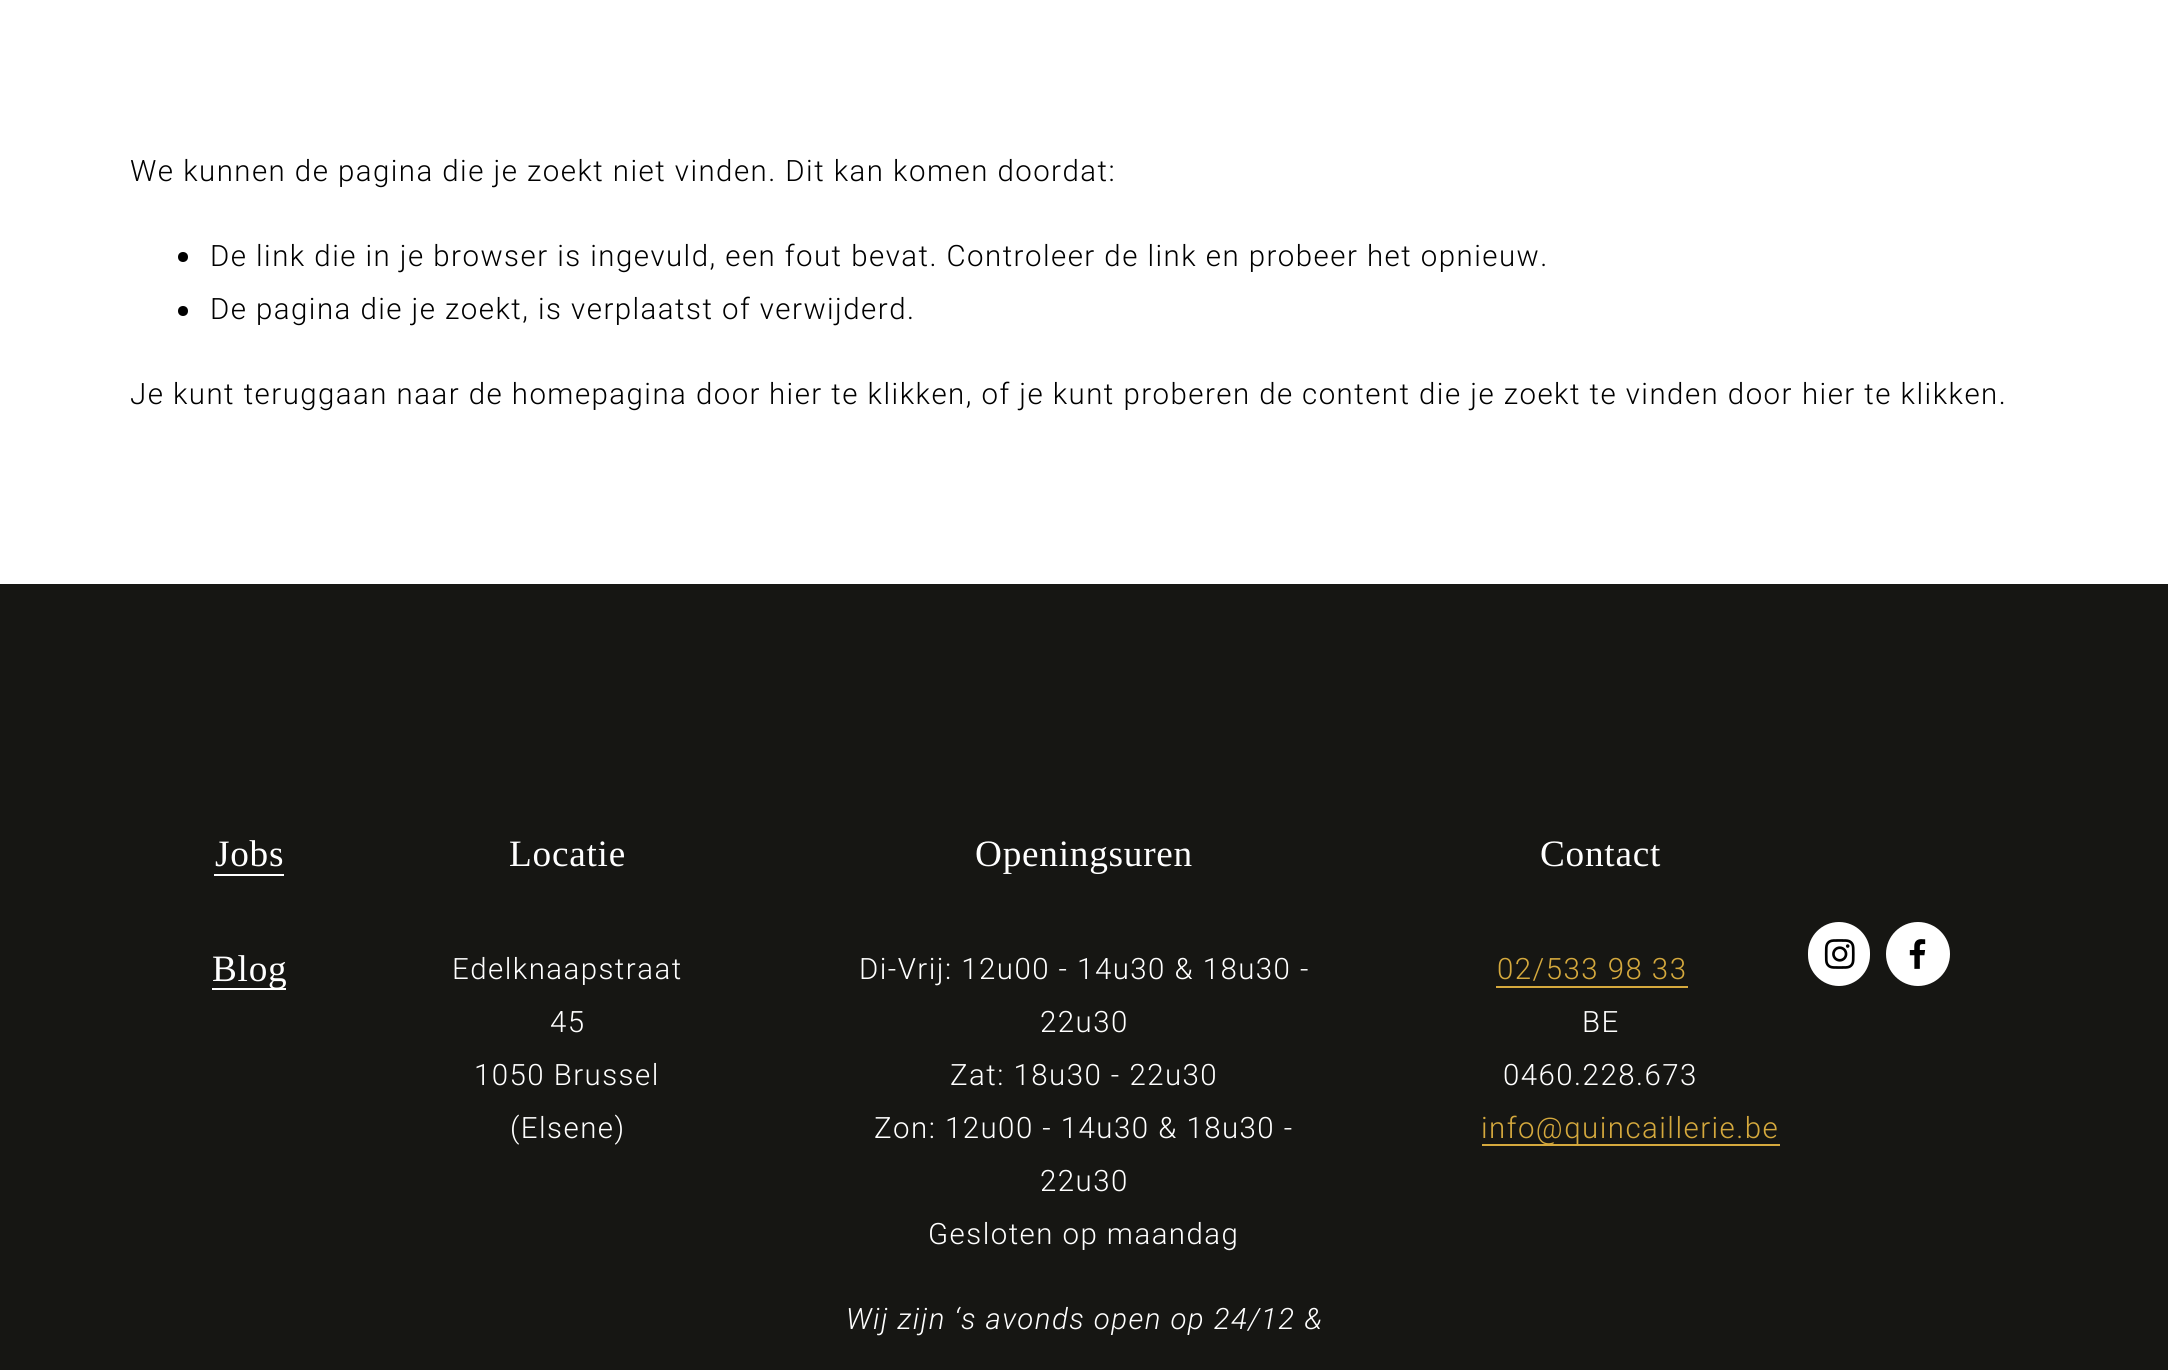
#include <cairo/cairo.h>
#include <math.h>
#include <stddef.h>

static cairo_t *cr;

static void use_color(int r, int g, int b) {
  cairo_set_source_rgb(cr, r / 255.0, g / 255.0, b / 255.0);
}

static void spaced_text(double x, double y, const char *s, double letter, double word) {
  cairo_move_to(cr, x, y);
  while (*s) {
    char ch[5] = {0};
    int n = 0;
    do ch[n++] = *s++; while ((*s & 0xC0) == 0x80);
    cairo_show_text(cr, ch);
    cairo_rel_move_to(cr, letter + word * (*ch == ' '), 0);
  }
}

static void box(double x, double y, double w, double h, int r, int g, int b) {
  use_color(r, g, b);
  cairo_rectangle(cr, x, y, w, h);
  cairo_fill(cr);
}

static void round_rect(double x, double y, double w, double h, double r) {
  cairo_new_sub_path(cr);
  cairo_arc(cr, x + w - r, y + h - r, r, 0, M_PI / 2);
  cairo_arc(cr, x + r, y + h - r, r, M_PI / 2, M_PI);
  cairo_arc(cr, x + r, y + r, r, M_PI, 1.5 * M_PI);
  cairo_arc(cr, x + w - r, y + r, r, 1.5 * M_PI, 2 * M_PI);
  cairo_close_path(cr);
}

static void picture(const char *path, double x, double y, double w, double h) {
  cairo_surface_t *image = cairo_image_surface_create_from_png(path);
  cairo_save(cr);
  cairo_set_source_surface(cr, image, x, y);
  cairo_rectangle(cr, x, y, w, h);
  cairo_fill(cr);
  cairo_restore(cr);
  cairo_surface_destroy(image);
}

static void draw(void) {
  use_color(255, 255, 255);
  cairo_paint(cr);
  use_color(0, 0, 0);
  cairo_arc(cr, 183, 257, 5, 0, 2 * M_PI);
  cairo_fill(cr);
  cairo_arc(cr, 183, 311, 5, 0, 2 * M_PI);
  cairo_fill(cr);
  box(0, 584, 2168, 786, 22, 22, 19);
  box(214, 874, 70, 2, 255, 255, 255);
  box(212, 988, 74, 2, 255, 255, 255);
  box(1496, 986, 192, 2, 213, 169, 61);
  box(1482, 1144, 298, 2, 213, 169, 61);
  use_color(255, 255, 255);
  round_rect(1808, 922, 62, 64, 31);
  cairo_fill(cr);
  picture("img_01.png", 1824, 939, 31, 30);
  cairo_arc(cr, 1918, 954, 32, 0, 2 * M_PI);
  cairo_fill(cr);
  picture("img_02.png", 1909, 939, 17, 30);
  cairo_select_font_face(cr, "Roboto Light", CAIRO_FONT_SLANT_NORMAL, CAIRO_FONT_WEIGHT_NORMAL);
  cairo_set_font_size(cr, 29.4);
  use_color(0, 0, 0);
  spaced_text(130, 181, "We kunnen de pagina die je zoekt niet vinden. Dit kan komen doordat:", 1.47, 0);
  spaced_text(210, 266, "De link die in je browser is ingevuld, een fout bevat. Controleer de link en probeer het opnieuw.", 1.47, 0);
  spaced_text(210, 319, "De pagina die je zoekt, is verplaatst of verwijderd.", 1.47, 0);
  spaced_text(130, 404, "Je kunt teruggaan naar de homepagina door", 1.47, 0);
  spaced_text(769, 404, "hier te klikken, of je kunt proberen de", 1.47, 0);
  spaced_text(1302, 404, "content die je zoekt te vinden door", 1.47, 0);
  spaced_text(1802, 404, "hier te klikken.", 1.47, 0);
  cairo_select_font_face(cr, "Liberation Serif", CAIRO_FONT_SLANT_NORMAL, CAIRO_FONT_WEIGHT_NORMAL);
  cairo_set_font_size(cr, 37.25);
  use_color(255, 255, 255);
  spaced_text(215, 866, "Jobs", 0.75, 0);
  spaced_text(212, 981, "Blog", 0.75, 0);
  spaced_text(509, 866, "Locatie", 0.75, 0);
  cairo_select_font_face(cr, "Roboto Light", CAIRO_FONT_SLANT_NORMAL, CAIRO_FONT_WEIGHT_NORMAL);
  cairo_set_font_size(cr, 29.4);
  spaced_text(452, 979, "Edelknaapstraat", 1.47, 0);
  spaced_text(550, 1032, "45", 1.47, 0);
  spaced_text(474, 1085, "1050 Brussel", 1.47, 0);
  spaced_text(510, 1138, "(Elsene)", 1.47, 0);
  cairo_select_font_face(cr, "Liberation Serif", CAIRO_FONT_SLANT_NORMAL, CAIRO_FONT_WEIGHT_NORMAL);
  cairo_set_font_size(cr, 37.25);
  spaced_text(975, 866, "Openingsuren", 0.75, 0);
  cairo_select_font_face(cr, "Roboto Light", CAIRO_FONT_SLANT_NORMAL, CAIRO_FONT_WEIGHT_NORMAL);
  cairo_set_font_size(cr, 29.4);
  spaced_text(859, 979, "Di-Vrij: 12u00 - 14u30 & 18u30 -", 1.47, 0);
  spaced_text(1040, 1032, "22u30", 1.47, 0);
  spaced_text(950, 1085, "Zat: 18u30 - 22u30", 1.47, 0);
  spaced_text(874, 1138, "Zon: 12u00 - 14u30 & 18u30 -", 1.47, 0);
  spaced_text(1040, 1191, "22u30", 1.47, 0);
  spaced_text(928, 1244, "Gesloten op maandag", 1.47, 0);
  cairo_select_font_face(cr, "Roboto Light", CAIRO_FONT_SLANT_ITALIC, CAIRO_FONT_WEIGHT_NORMAL);
  spaced_text(846, 1329, "Wij zijn ‘s avonds open op 24/12 &", 1.47, 0);
  cairo_select_font_face(cr, "Liberation Serif", CAIRO_FONT_SLANT_NORMAL, CAIRO_FONT_WEIGHT_NORMAL);
  cairo_set_font_size(cr, 37.25);
  spaced_text(1540, 866, "Contact", 0.75, 0);
  cairo_select_font_face(cr, "Roboto Light", CAIRO_FONT_SLANT_NORMAL, CAIRO_FONT_WEIGHT_NORMAL);
  cairo_set_font_size(cr, 29.4);
  use_color(213, 169, 61);
  spaced_text(1497, 979, "02/533 98 33", 1.47, 0);
  use_color(255, 255, 255);
  spaced_text(1582, 1032, "BE", 1.47, 0);
  spaced_text(1503, 1085, "0460.228.673", 1.47, 0);
  use_color(213, 169, 61);
  spaced_text(1481, 1138, "info@quincaillerie.be", 1.47, 0);
}

int main(void) {
  cairo_surface_t *surface = cairo_image_surface_create(CAIRO_FORMAT_RGB24, 2168, 1370);
  cr = cairo_create(surface);
  cairo_font_options_t *options = cairo_font_options_create();
  cairo_font_options_set_hint_metrics(options, CAIRO_HINT_METRICS_OFF);
  cairo_font_options_set_hint_style(options, CAIRO_HINT_STYLE_NONE);
  cairo_set_font_options(cr, options);
  cairo_set_miter_limit(cr, 4);
  draw();
  cairo_surface_write_to_png(surface, "out.png");
  cairo_font_options_destroy(options);
  cairo_destroy(cr);
  cairo_surface_destroy(surface);
  return 0;
}
